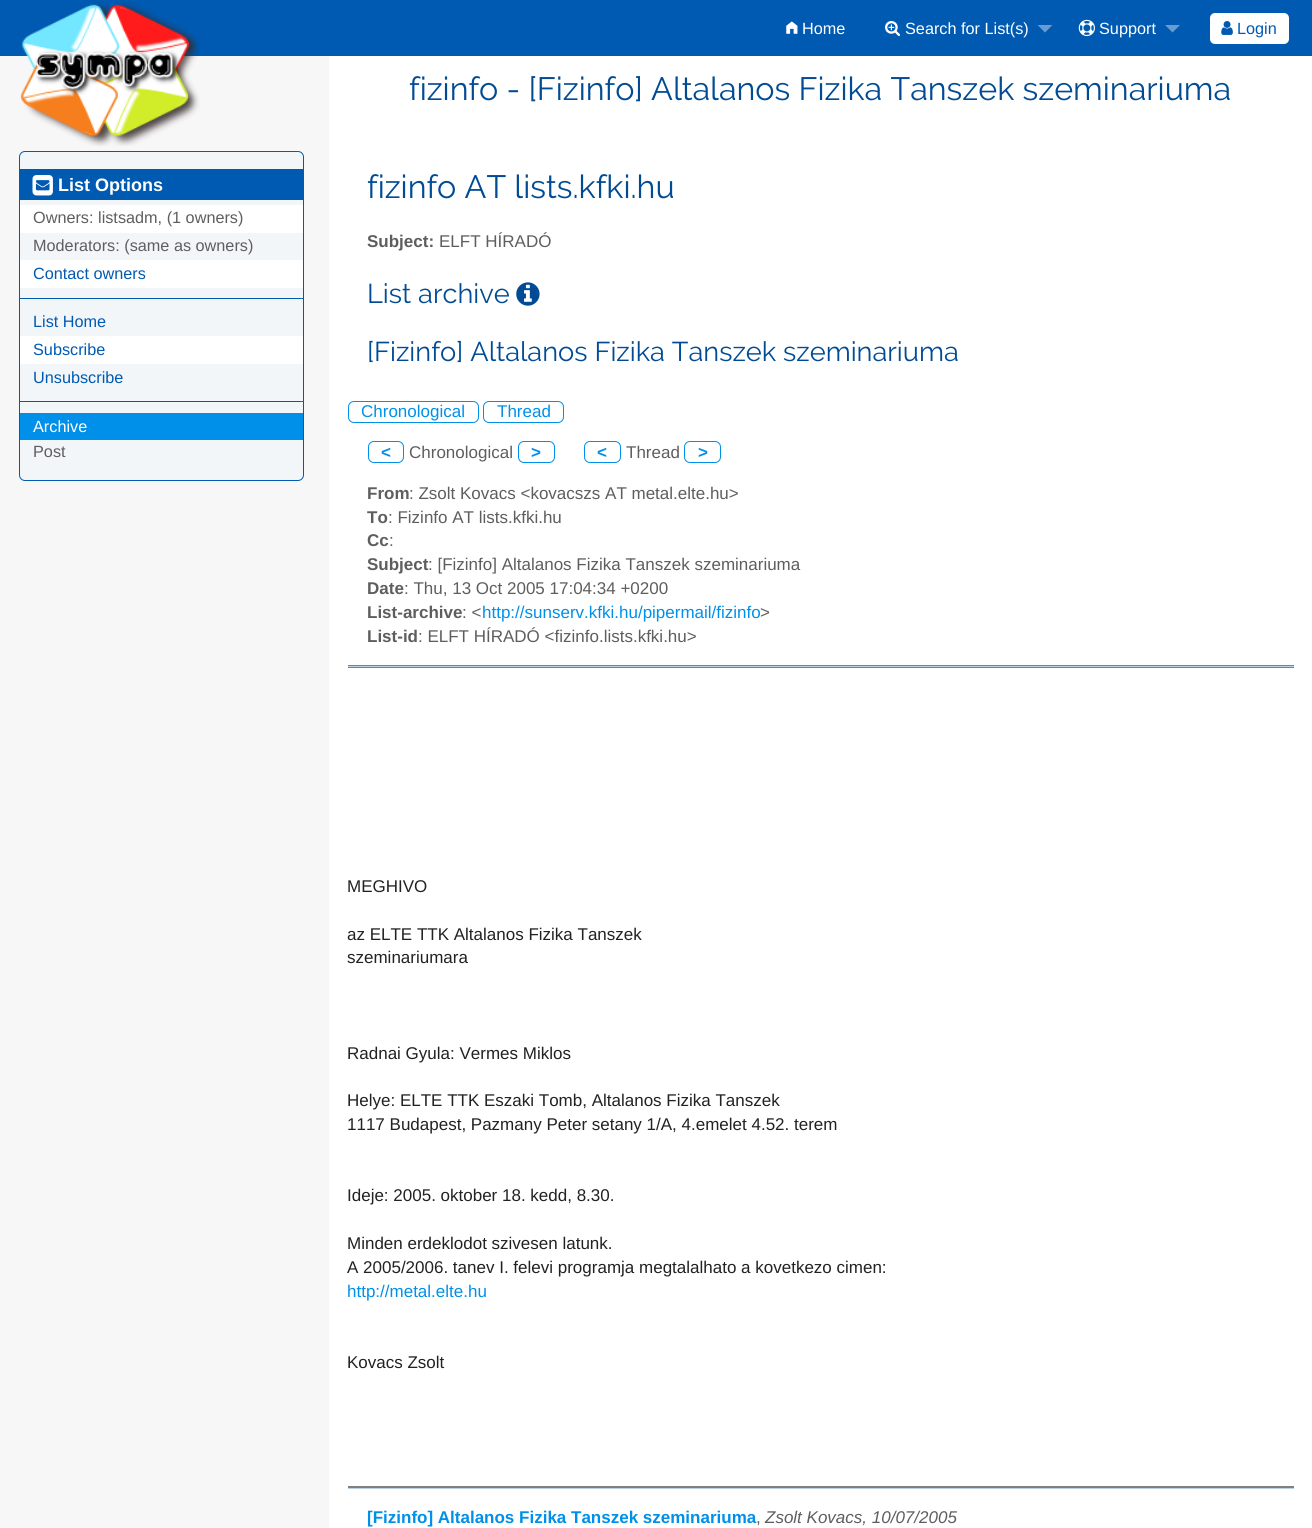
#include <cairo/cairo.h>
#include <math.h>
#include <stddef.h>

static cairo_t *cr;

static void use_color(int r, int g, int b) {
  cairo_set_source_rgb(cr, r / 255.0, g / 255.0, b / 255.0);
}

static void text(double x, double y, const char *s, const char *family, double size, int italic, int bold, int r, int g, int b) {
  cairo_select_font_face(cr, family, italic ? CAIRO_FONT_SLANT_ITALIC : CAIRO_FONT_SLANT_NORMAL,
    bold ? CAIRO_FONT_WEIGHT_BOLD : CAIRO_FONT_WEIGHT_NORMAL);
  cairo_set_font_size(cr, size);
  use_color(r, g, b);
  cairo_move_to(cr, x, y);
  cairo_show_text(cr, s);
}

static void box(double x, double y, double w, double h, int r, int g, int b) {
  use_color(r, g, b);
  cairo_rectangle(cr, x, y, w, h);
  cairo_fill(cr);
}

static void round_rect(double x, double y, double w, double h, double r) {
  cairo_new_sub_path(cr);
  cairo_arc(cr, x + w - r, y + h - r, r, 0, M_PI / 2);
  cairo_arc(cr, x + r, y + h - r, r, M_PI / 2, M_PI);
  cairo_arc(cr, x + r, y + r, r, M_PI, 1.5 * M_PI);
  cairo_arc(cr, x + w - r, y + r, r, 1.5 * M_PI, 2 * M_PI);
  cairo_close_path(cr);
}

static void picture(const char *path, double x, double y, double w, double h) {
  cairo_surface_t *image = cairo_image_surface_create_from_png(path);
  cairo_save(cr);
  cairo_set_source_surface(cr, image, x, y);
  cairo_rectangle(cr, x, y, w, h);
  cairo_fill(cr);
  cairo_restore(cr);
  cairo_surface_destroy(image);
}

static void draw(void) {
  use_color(247, 247, 247);
  cairo_paint(cr);
  box(0, 0, 1312, 56, 0, 90, 178);
  picture("img_01.png", 20, 1, 180, 145);
  picture("img_02.png", 786, 21, 12, 13);
  picture("img_03.png", 885, 21, 16, 15);
  use_color(102, 156, 209);
  cairo_new_path(cr);
  cairo_move_to(cr, 1037.5, 25);
  cairo_line_to(cr, 1052.5, 25);
  cairo_line_to(cr, 1045, 32.5);
  cairo_close_path(cr);
  cairo_fill(cr);
  picture("img_04.png", 1078, 19, 17, 18);
  cairo_new_path(cr);
  cairo_move_to(cr, 1165, 25);
  cairo_line_to(cr, 1180, 25);
  cairo_line_to(cr, 1172.5, 32.5);
  cairo_close_path(cr);
  cairo_fill(cr);
  use_color(255, 255, 255);
  round_rect(1210, 13, 79, 31, 5);
  cairo_fill(cr);
  picture("img_05.png", 1221, 21, 12, 14);
  box(329, 56, 983, 1472, 255, 255, 255);
  use_color(242, 246, 249);
  round_rect(19.5, 151.5, 284, 329, 5.5);
  cairo_fill_preserve(cr);
  use_color(0, 90, 178);
  cairo_set_line_width(cr, 1);
  cairo_stroke(cr);
  box(20, 169, 283, 31, 0, 90, 178);
  picture("img_06.png", 32, 175, 21, 21);
  box(20, 205, 283, 28, 255, 255, 255);
  box(20, 260, 283, 28, 255, 255, 255);
  box(20, 298, 283, 1, 0, 90, 178);
  box(301, 298, 1, 1, 0, 144, 233);
  box(20, 336, 283, 28, 255, 255, 255);
  box(20, 401, 283, 1, 0, 90, 178);
  box(301, 401, 1, 1, 0, 144, 233);
  box(20, 413, 283, 27, 0, 144, 233);
  picture("img_07.png", 516, 282, 24, 24);
  round_rect(348.5, 401.5, 130, 21, 5.5);
  cairo_stroke(cr);
  round_rect(483.5, 401.5, 80, 21, 5.5);
  cairo_stroke(cr);
  round_rect(368.5, 441.5, 35, 21, 5.5);
  cairo_stroke(cr);
  round_rect(518.5, 441.5, 36, 21, 5.5);
  cairo_stroke(cr);
  round_rect(584.5, 441.5, 36, 21, 5.5);
  cairo_stroke(cr);
  round_rect(684.5, 441.5, 36, 21, 5.5);
  cairo_stroke(cr);
  box(348, 665, 946, 3, 128, 128, 128);
  box(348, 666, 946, 1, 191, 210, 225);
  box(348, 1486, 946, 2, 128, 128, 128);
  box(348, 1488, 946, 1, 191, 210, 225);
  text(802, 34, "Home", "Liberation Sans", 16.25, 0, 0, 255, 255, 255);
  text(905, 34, "Search for List(s)", "Liberation Sans", 16.25, 0, 0, 255, 255, 255);
  text(1099, 34, "Support", "Liberation Sans", 16.25, 0, 0, 255, 255, 255);
  text(1237, 34, "Login", "Liberation Sans", 16.25, 0, 0, 0, 90, 178);
  text(409, 100, "fizinfo - [Fizinfo] Altalanos Fizika Tanszek szeminariuma", "Raleway", 32.3, 0, 0, 0, 75, 148);
  text(58, 191, "List Options", "Liberation Sans", 18, 0, 1, 255, 255, 255);
  text(33, 223, "Owners: listsadm, (1 owners)", "Liberation Sans", 16.25, 0, 0, 94, 94, 94);
  text(33, 251, "Moderators: (same as owners)", "Liberation Sans", 16.25, 0, 0, 94, 94, 94);
  text(33, 279, "Contact owners", "Liberation Sans", 16.25, 0, 0, 0, 90, 178);
  text(33, 327, "List Home", "Liberation Sans", 16.25, 0, 0, 0, 90, 178);
  text(33, 355, "Subscribe", "Liberation Sans", 16.25, 0, 0, 0, 90, 178);
  text(33, 383, "Unsubscribe", "Liberation Sans", 16.25, 0, 0, 0, 90, 178);
  text(33, 432, "Archive", "Liberation Sans", 16.25, 0, 0, 255, 255, 255);
  text(33, 457, "Post", "Liberation Sans", 16.25, 0, 0, 94, 94, 94);
  text(367, 198, "fizinfo AT lists.kfki.hu", "Raleway", 32.3, 0, 0, 0, 75, 148);
  text(367, 247, "Subject:", "Liberation Sans", 17, 0, 1, 94, 94, 94);
  text(439, 247, "ELFT HÍRADÓ", "Liberation Sans", 17, 0, 0, 94, 94, 94);
  text(367, 303, "List archive", "Raleway", 27.2, 0, 0, 0, 75, 148);
  text(367, 361, "[Fizinfo] Altalanos Fizika Tanszek szeminariuma", "Raleway", 27.2, 0, 0, 0, 75, 148);
  text(361, 417, "Chronological", "Liberation Sans", 17, 0, 0, 0, 144, 233);
  text(497, 417, "Thread", "Liberation Sans", 17, 0, 0, 0, 144, 233);
  text(381, 458, "<", "Liberation Sans", 17, 0, 1, 0, 144, 233);
  text(409, 458, "Chronological", "Liberation Sans", 17, 0, 0, 94, 94, 94);
  text(531, 458, ">", "Liberation Sans", 17, 0, 1, 0, 144, 233);
  text(597, 458, "<", "Liberation Sans", 17, 0, 1, 0, 144, 233);
  text(626, 458, "Thread", "Liberation Sans", 17, 0, 0, 94, 94, 94);
  text(698, 458, ">", "Liberation Sans", 17, 0, 1, 0, 144, 233);
  text(367, 499, "From", "Liberation Sans", 17, 0, 1, 94, 94, 94);
  text(409, 499, ": Zsolt Kovacs <kovacszs AT metal.elte.hu>", "Liberation Sans", 17, 0, 0, 94, 94, 94);
  text(367, 523, "To", "Liberation Sans", 17, 0, 1, 94, 94, 94);
  text(388, 523, ": Fizinfo AT lists.kfki.hu", "Liberation Sans", 17, 0, 0, 94, 94, 94);
  text(367, 546, "Cc", "Liberation Sans", 17, 0, 1, 94, 94, 94);
  text(389, 546, ":", "Liberation Sans", 17, 0, 0, 94, 94, 94);
  text(367, 570, "Subject", "Liberation Sans", 17, 0, 1, 94, 94, 94);
  text(428, 570, ": [Fizinfo] Altalanos Fizika Tanszek szeminariuma", "Liberation Sans", 17, 0, 0, 94, 94, 94);
  text(367, 594, "Date", "Liberation Sans", 17, 0, 1, 94, 94, 94);
  text(404, 594, ": Thu, 13 Oct 2005 17:04:34 +0200", "Liberation Sans", 17, 0, 0, 94, 94, 94);
  text(367, 618, "List-archive", "Liberation Sans", 17, 0, 1, 94, 94, 94);
  text(462, 618, ": <", "Liberation Sans", 17, 0, 0, 94, 94, 94);
  text(482, 618, "http://sunserv.kfki.hu/pipermail/fizinfo", "Liberation Sans", 17, 0, 0, 0, 144, 233);
  text(760, 618, ">", "Liberation Sans", 17, 0, 0, 94, 94, 94);
  text(367, 642, "List-id", "Liberation Sans", 17, 0, 1, 94, 94, 94);
  text(418, 642, ": ELFT HÍRADÓ <fizinfo.lists.kfki.hu>", "Liberation Sans", 17, 0, 0, 94, 94, 94);
  text(347, 892, "MEGHIVO", "Liberation Sans", 17, 0, 0, 34, 34, 34);
  text(347, 940, "az ELTE TTK Altalanos Fizika Tanszek", "Liberation Sans", 17, 0, 0, 34, 34, 34);
  text(347, 963, "szeminariumara", "Liberation Sans", 17, 0, 0, 34, 34, 34);
  text(347, 1059, "Radnai Gyula: Vermes Miklos", "Liberation Sans", 17, 0, 0, 34, 34, 34);
  text(347, 1106, "Helye: ELTE TTK Eszaki Tomb, Altalanos Fizika Tanszek", "Liberation Sans", 17, 0, 0, 34, 34, 34);
  text(347, 1130, "1117 Budapest, Pazmany Peter setany 1/A, 4.emelet 4.52. terem", "Liberation Sans", 17, 0, 0, 34, 34, 34);
  text(347, 1201, "Ideje: 2005. oktober 18. kedd, 8.30.", "Liberation Sans", 17, 0, 0, 34, 34, 34);
  text(347, 1249, "Minden erdeklodot szivesen latunk.", "Liberation Sans", 17, 0, 0, 34, 34, 34);
  text(347, 1273, "A 2005/2006. tanev I. felevi programja megtalalhato a kovetkezo cimen:", "Liberation Sans", 17, 0, 0, 34, 34, 34);
  text(347, 1297, "http://metal.elte.hu", "Liberation Sans", 17, 0, 0, 0, 144, 233);
  text(347, 1368, "Kovacs Zsolt", "Liberation Sans", 17, 0, 0, 34, 34, 34);
  text(367, 1523, "[Fizinfo] Altalanos Fizika Tanszek szeminariuma", "Liberation Sans", 17, 0, 1, 0, 144, 233);
  text(756, 1523, ",", "Liberation Sans", 17, 0, 0, 94, 94, 94);
  text(765, 1523, "Zsolt Kovacs, 10/07/2005", "Liberation Sans", 17, 1, 0, 94, 94, 94);
}

int main(void) {
  cairo_surface_t *surface = cairo_image_surface_create(CAIRO_FORMAT_RGB24, 1312, 1528);
  cr = cairo_create(surface);
  cairo_font_options_t *options = cairo_font_options_create();
  cairo_font_options_set_hint_metrics(options, CAIRO_HINT_METRICS_OFF);
  cairo_font_options_set_hint_style(options, CAIRO_HINT_STYLE_NONE);
  cairo_set_font_options(cr, options);
  cairo_set_miter_limit(cr, 4);
  draw();
  cairo_surface_write_to_png(surface, "out.png");
  cairo_font_options_destroy(options);
  cairo_destroy(cr);
  cairo_surface_destroy(surface);
  return 0;
}
